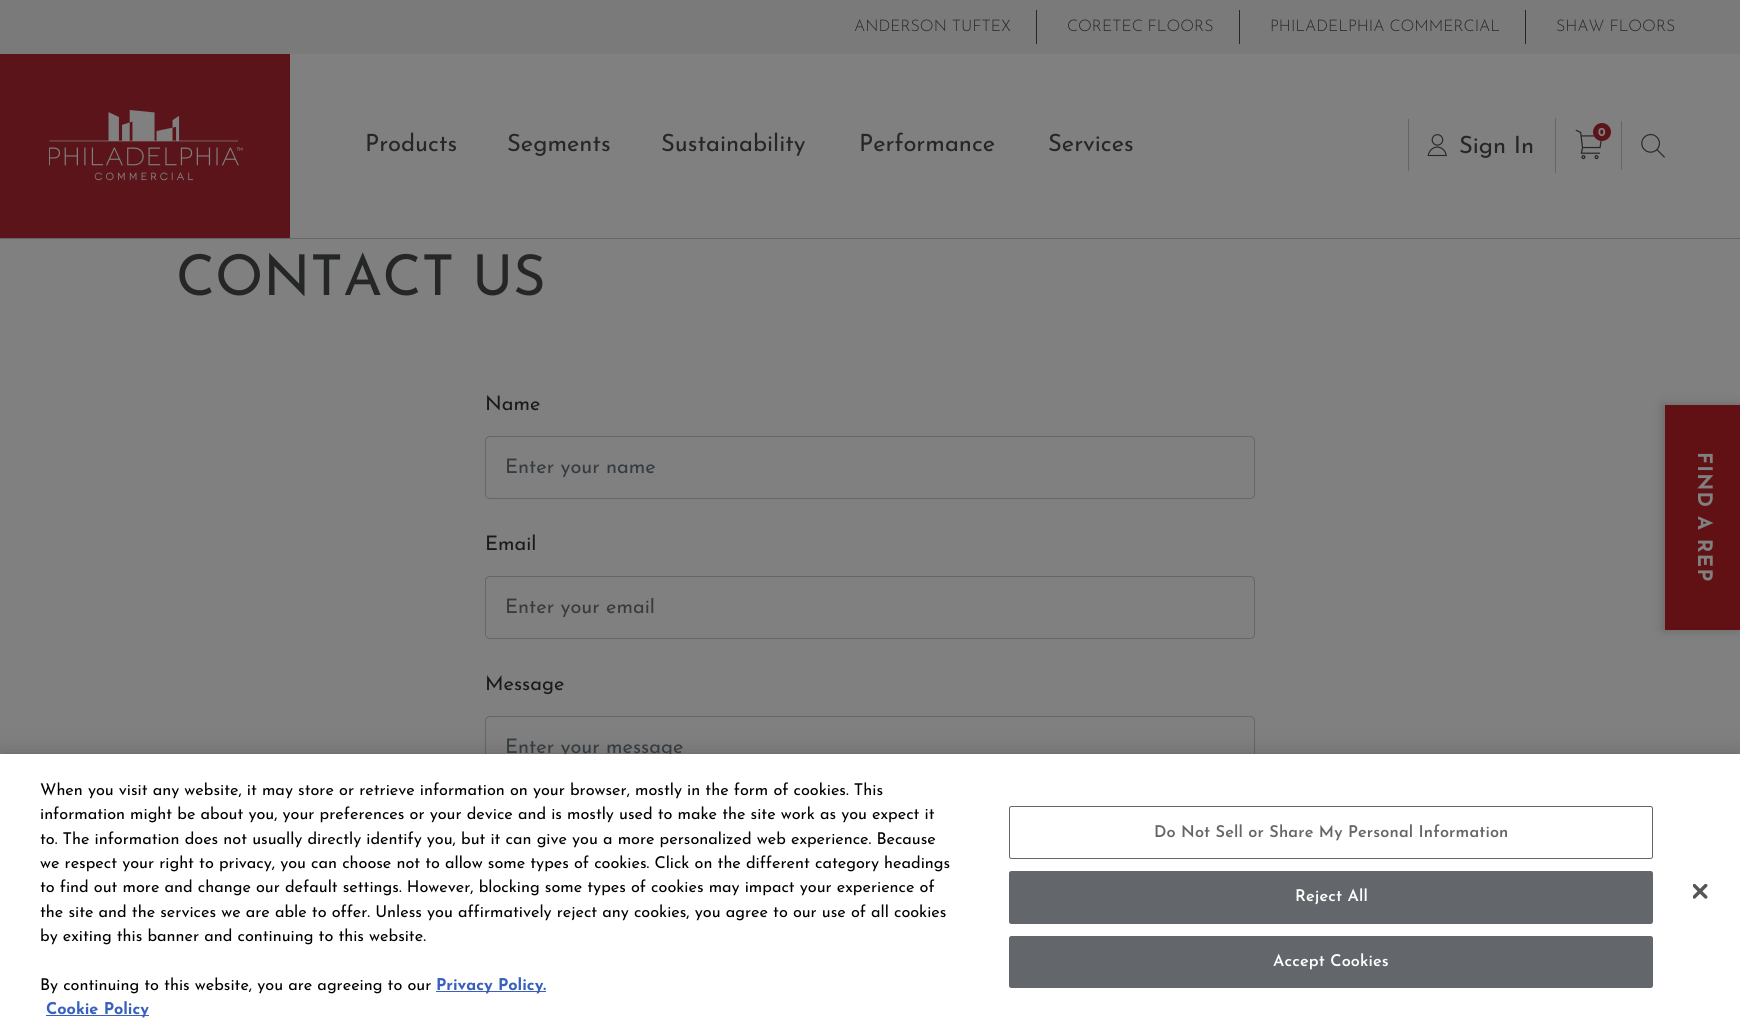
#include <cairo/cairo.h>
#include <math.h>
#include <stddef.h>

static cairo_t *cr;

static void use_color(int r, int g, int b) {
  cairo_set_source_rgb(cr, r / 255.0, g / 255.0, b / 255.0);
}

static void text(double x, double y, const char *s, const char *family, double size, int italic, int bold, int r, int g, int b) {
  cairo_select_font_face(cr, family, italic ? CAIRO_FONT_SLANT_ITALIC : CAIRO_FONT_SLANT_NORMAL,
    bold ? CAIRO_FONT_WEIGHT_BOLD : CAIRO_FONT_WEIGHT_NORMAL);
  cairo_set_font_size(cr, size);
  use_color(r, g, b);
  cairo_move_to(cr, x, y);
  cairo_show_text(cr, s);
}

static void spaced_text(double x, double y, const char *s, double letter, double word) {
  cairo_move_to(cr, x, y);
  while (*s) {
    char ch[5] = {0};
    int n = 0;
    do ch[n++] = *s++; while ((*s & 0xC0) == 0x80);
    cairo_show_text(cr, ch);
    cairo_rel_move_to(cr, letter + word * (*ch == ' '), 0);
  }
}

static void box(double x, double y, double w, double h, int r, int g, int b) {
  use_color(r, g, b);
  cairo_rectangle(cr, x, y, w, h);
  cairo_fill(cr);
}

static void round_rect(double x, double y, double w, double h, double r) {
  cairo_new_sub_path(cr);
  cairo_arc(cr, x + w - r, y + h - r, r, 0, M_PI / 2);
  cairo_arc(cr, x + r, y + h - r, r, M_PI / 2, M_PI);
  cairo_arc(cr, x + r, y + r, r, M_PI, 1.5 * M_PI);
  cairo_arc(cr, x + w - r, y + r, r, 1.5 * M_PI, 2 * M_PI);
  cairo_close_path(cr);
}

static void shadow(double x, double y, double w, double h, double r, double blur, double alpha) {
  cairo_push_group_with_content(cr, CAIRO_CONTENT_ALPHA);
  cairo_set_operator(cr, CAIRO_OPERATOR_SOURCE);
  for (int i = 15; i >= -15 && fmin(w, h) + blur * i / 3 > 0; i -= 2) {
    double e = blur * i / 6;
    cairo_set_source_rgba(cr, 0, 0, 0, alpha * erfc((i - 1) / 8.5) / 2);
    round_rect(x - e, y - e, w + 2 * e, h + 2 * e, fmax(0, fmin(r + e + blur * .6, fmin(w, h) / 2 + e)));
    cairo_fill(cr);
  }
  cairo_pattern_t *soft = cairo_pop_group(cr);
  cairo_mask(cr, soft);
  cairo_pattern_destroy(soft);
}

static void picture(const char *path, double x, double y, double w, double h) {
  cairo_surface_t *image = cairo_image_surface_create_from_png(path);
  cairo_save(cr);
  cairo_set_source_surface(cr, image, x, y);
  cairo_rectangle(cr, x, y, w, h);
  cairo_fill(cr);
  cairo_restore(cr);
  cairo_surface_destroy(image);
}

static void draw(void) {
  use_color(128, 128, 128);
  cairo_paint(cr);
  box(0, 0, 1740, 54, 122, 122, 122);
  box(1036, 10, 1, 34, 37, 38, 38);
  box(1239, 10, 1, 34, 37, 38, 38);
  box(1525, 10, 1, 34, 37, 38, 38);
  box(0, 238, 1740, 1, 101, 101, 101);
  box(0, 54, 290, 184, 91, 20, 25);
  picture("img_01.png", 49, 110, 194, 71);
  box(1555, 118, 1, 55, 101, 101, 101);
  picture("img_02.png", 1575, 129, 27, 31);
  use_color(91, 20, 25);
  cairo_arc(cr, 1602, 132, 9, 0, 2 * M_PI);
  cairo_fill(cr);
  box(1621, 121, 1, 49, 101, 101, 101);
  picture("img_03.png", 1641, 134, 24, 24);
  box(1408, 119, 1, 52, 101, 101, 101);
  picture("img_04.png", 1427, 134, 20, 23);
  round_rect(485.5, 436.5, 769, 62, 4.5);
  use_color(102, 102, 102);
  cairo_set_line_width(cr, 1);
  cairo_stroke(cr);
  round_rect(485.5, 576.5, 769, 62, 4.5);
  cairo_stroke(cr);
  round_rect(485.5, 716.5, 769, 92, 4.5);
  cairo_stroke(cr);
  use_color(0, 0, 0);
  shadow(1663, 405, 75, 225, 0, 5, 0.2);
  box(1665, 405, 75, 225, 97, 16, 19);
  use_color(0, 0, 0);
  shadow(0, 754, 1740, 281, 0, 11, 0.2);
  text(854, 31, "ANDERSON TUFTEX", "Josefin Sans Light", 16, 0, 0, 37, 38, 38);
  text(1067, 31, "CORETEC FLOORS", "Josefin Sans Light", 16, 0, 0, 37, 38, 38);
  text(1270, 31, "PHILADELPHIA COMMERCIAL", "Josefin Sans Light", 16, 0, 0, 37, 38, 38);
  text(1556, 31, "SHAW FLOORS", "Josefin Sans Light", 16, 0, 0, 37, 38, 38);
  text(365, 151, "Products", "Josefin Sans", 23.75, 0, 0, 37, 38, 38);
  text(507, 151, "Segments", "Josefin Sans", 23.75, 0, 0, 37, 38, 38);
  text(661, 151, "Sustainability", "Josefin Sans", 23.75, 0, 0, 37, 38, 38);
  text(859, 151, "Performance", "Josefin Sans", 23.75, 0, 0, 37, 38, 38);
  text(1048, 151, "Services", "Josefin Sans", 23.75, 0, 0, 37, 38, 38);
  text(1598, 136, "0", "Josefin Sans", 12, 0, 1, 128, 128, 128);
  text(1459, 153, "Sign In", "Josefin Sans", 23.75, 0, 0, 37, 38, 38);
  text(176, 295, "CONTACT US", "Josefin Sans", 56.25, 0, 0, 37, 38, 38);
  text(485, 410, "Name", "Josefin Sans", 20, 0, 0, 26, 26, 26);
  text(505, 473, "Enter your name", "Josefin Sans", 20, 0, 0, 54, 59, 63);
  text(485, 550, "Email", "Josefin Sans", 20, 0, 0, 26, 26, 26);
  cairo_save(cr);
  cairo_rectangle(cr, 505, 598, 730, 20);
  cairo_clip(cr);
  text(505, 613, "Enter your email", "Josefin Sans", 20, 0, 0, 54, 59, 63);
  cairo_restore(cr);
  text(485, 690, "Message", "Josefin Sans", 20, 0, 0, 26, 26, 26);
  text(505, 753, "Enter your message", "Josefin Sans", 20, 0, 0, 54, 59, 63);
  cairo_select_font_face(cr, "Josefin Sans", CAIRO_FONT_SLANT_NORMAL, CAIRO_FONT_WEIGHT_BOLD);
  use_color(128, 128, 128);
  cairo_save(cr);
  cairo_translate(cr, 1698, 452);
  cairo_rotate(cr, 90 * M_PI / 180);
  spaced_text(0, 0, "FIND A REP", 1.25, 0);
  cairo_restore(cr);
  box(0, 754, 1740, 281, 255, 255, 255);
  text(40, 795, "When you visit any website, it may store or retrieve information on your browser, mostly in the form of cookies. This", "Josefin Sans", 16.25, 0, 0, 0, 0, 0);
  text(40, 819, "information might be about you, your preferences or your device and is mostly used to make the site work as you expect it", "Josefin Sans", 16.25, 0, 0, 0, 0, 0);
  text(40, 844, "to. The information does not usually directly identify you, but it can give you a more personalized web experience. Because", "Josefin Sans", 16.25, 0, 0, 0, 0, 0);
  text(40, 868, "we respect your right to privacy, you can choose not to allow some types of cookies. Click on the different category headings", "Josefin Sans", 16.25, 0, 0, 0, 0, 0);
  text(40, 892, "to find out more and change our default settings. However, blocking some types of cookies may impact your experience of", "Josefin Sans", 16.25, 0, 0, 0, 0, 0);
  text(40, 917, "the site and the services we are able to offer. Unless you affirmatively reject any cookies, you agree to our use of all cookies", "Josefin Sans", 16.25, 0, 0, 0, 0, 0);
  text(40, 941, "by exiting this banner and continuing to this website.", "Josefin Sans", 16.25, 0, 0, 0, 0, 0);
  text(40, 990, "By continuing to this website, you are agreeing to our", "Josefin Sans", 16.25, 0, 0, 0, 0, 0);
  box(436, 991, 110, 1, 56, 96, 190);
  text(436, 990, "Privacy Policy.", "Josefin Sans", 16.25, 0, 1, 56, 96, 190);
  box(46, 1015, 103, 1, 56, 96, 190);
  text(46, 1014, "Cookie Policy", "Josefin Sans", 16.25, 0, 1, 56, 96, 190);
  round_rect(1009.5, 806.5, 643, 52, 2);
  use_color(99, 102, 106);
  cairo_stroke(cr);
  cairo_select_font_face(cr, "Josefin Sans SemiBold", CAIRO_FONT_SLANT_NORMAL, CAIRO_FONT_WEIGHT_NORMAL);
  spaced_text(1154, 837, "Do Not Sell or Share My Personal Information", 0.15, 0);
  round_rect(1009.5, 871.5, 643, 52, 2);
  cairo_fill_preserve(cr);
  cairo_stroke(cr);
  use_color(255, 255, 255);
  spaced_text(1295, 901, "Reject All", 0.15, 0);
  use_color(99, 102, 106);
  round_rect(1009.5, 936.5, 643, 51, 2);
  cairo_fill_preserve(cr);
  cairo_stroke(cr);
  use_color(255, 255, 255);
  spaced_text(1273, 966, "Accept Cookies", 0.15, 0);
  picture("img_05.png", 1693, 884, 15, 15);
}

int main(void) {
  cairo_surface_t *surface = cairo_image_surface_create(CAIRO_FORMAT_RGB24, 1740, 1035);
  cr = cairo_create(surface);
  cairo_font_options_t *options = cairo_font_options_create();
  cairo_font_options_set_hint_metrics(options, CAIRO_HINT_METRICS_OFF);
  cairo_font_options_set_hint_style(options, CAIRO_HINT_STYLE_NONE);
  cairo_set_font_options(cr, options);
  cairo_set_miter_limit(cr, 4);
  draw();
  cairo_surface_write_to_png(surface, "out.png");
  cairo_font_options_destroy(options);
  cairo_destroy(cr);
  cairo_surface_destroy(surface);
  return 0;
}
